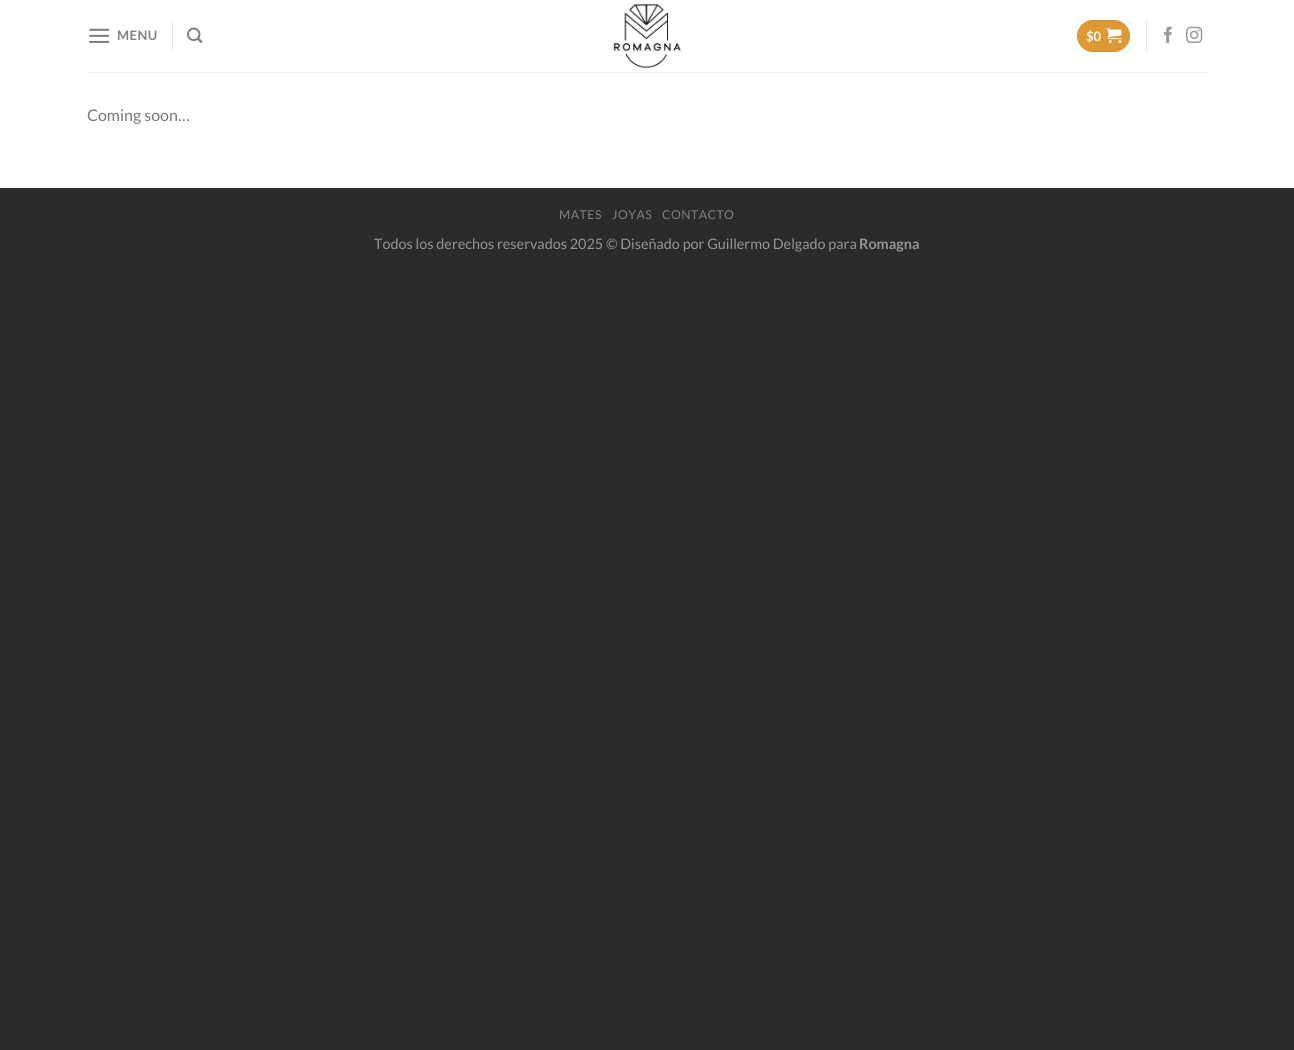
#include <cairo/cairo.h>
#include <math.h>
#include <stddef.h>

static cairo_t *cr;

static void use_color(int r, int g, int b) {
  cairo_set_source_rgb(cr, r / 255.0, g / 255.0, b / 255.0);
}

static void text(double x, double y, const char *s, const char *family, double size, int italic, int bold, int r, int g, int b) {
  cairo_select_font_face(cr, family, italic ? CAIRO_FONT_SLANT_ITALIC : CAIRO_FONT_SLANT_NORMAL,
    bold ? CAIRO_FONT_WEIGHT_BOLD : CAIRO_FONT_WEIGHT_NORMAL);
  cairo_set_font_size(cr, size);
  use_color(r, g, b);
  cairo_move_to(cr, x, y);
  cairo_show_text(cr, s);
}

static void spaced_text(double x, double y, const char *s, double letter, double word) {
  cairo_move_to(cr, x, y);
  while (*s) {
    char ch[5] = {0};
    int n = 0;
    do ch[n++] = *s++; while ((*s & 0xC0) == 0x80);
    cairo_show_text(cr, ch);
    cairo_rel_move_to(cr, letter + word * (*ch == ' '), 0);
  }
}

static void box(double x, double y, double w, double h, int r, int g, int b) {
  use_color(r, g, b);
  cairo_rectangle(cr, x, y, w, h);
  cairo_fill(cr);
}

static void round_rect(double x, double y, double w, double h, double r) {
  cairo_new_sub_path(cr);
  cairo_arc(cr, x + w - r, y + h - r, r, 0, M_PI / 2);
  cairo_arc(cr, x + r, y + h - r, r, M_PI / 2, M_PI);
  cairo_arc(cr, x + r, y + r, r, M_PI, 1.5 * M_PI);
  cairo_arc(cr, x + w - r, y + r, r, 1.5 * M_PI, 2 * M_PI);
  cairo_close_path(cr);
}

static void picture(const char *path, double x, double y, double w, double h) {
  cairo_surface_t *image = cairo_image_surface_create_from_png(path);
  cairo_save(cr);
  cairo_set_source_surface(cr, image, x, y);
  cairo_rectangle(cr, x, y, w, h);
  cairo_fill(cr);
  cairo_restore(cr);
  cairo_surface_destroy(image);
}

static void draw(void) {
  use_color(43, 43, 43);
  cairo_paint(cr);
  box(0, 0, 1294, 188, 255, 255, 255);
  picture("img_01.png", 89, 28, 21, 15);
  box(172, 21, 1, 30, 230, 230, 230);
  picture("img_02.png", 187, 27, 16, 16);
  picture("img_03.png", 613, 3, 68, 66);
  use_color(221, 153, 51);
  round_rect(1077, 20, 53, 32, 16);
  cairo_fill(cr);
  cairo_rectangle(cr, 1077.5, 20.5, 52, 31);
  cairo_set_source_rgba(cr, 0, 0, 0, 0.05);
  cairo_set_line_width(cr, 1);
  cairo_stroke(cr);
  picture("img_04.png", 1106, 28, 16, 15);
  box(1146, 21, 1, 30, 230, 230, 230);
  picture("img_05.png", 1164, 26, 8, 17);
  picture("img_06.png", 1186, 26, 17, 17);
  box(87, 72, 1120, 1, 241, 241, 241);
  cairo_select_font_face(cr, "Lato", CAIRO_FONT_SLANT_NORMAL, CAIRO_FONT_WEIGHT_BOLD);
  cairo_set_font_size(cr, 13);
  use_color(128, 128, 128);
  spaced_text(117, 40, "MENU", 0.5, 0);
  text(1086, 41, "$0", "Lato", 13, 0, 1, 255, 255, 255);
  text(87, 121, "Coming soon…", "Lato", 16, 0, 0, 119, 119, 119);
  cairo_set_font_size(cr, 12.25);
  use_color(128, 128, 128);
  spaced_text(559, 219, "MATES", 0.5, 0);
  spaced_text(612, 219, "JOYAS", 0.5, 0);
  spaced_text(662, 219, "CONTACTO", 0.5, 0);
  text(374, 249, "Todos los derechos reservados 2025 © Diseñado por Guillermo Delgado para", "Lato", 14.4, 0, 0, 149, 149, 149);
  text(859, 249, "Romagna", "Lato", 14.4, 0, 1, 149, 149, 149);
}

int main(void) {
  cairo_surface_t *surface = cairo_image_surface_create(CAIRO_FORMAT_RGB24, 1294, 1050);
  cr = cairo_create(surface);
  cairo_font_options_t *options = cairo_font_options_create();
  cairo_font_options_set_hint_metrics(options, CAIRO_HINT_METRICS_OFF);
  cairo_font_options_set_hint_style(options, CAIRO_HINT_STYLE_NONE);
  cairo_set_font_options(cr, options);
  cairo_set_miter_limit(cr, 4);
  draw();
  cairo_surface_write_to_png(surface, "out.png");
  cairo_font_options_destroy(options);
  cairo_destroy(cr);
  cairo_surface_destroy(surface);
  return 0;
}
